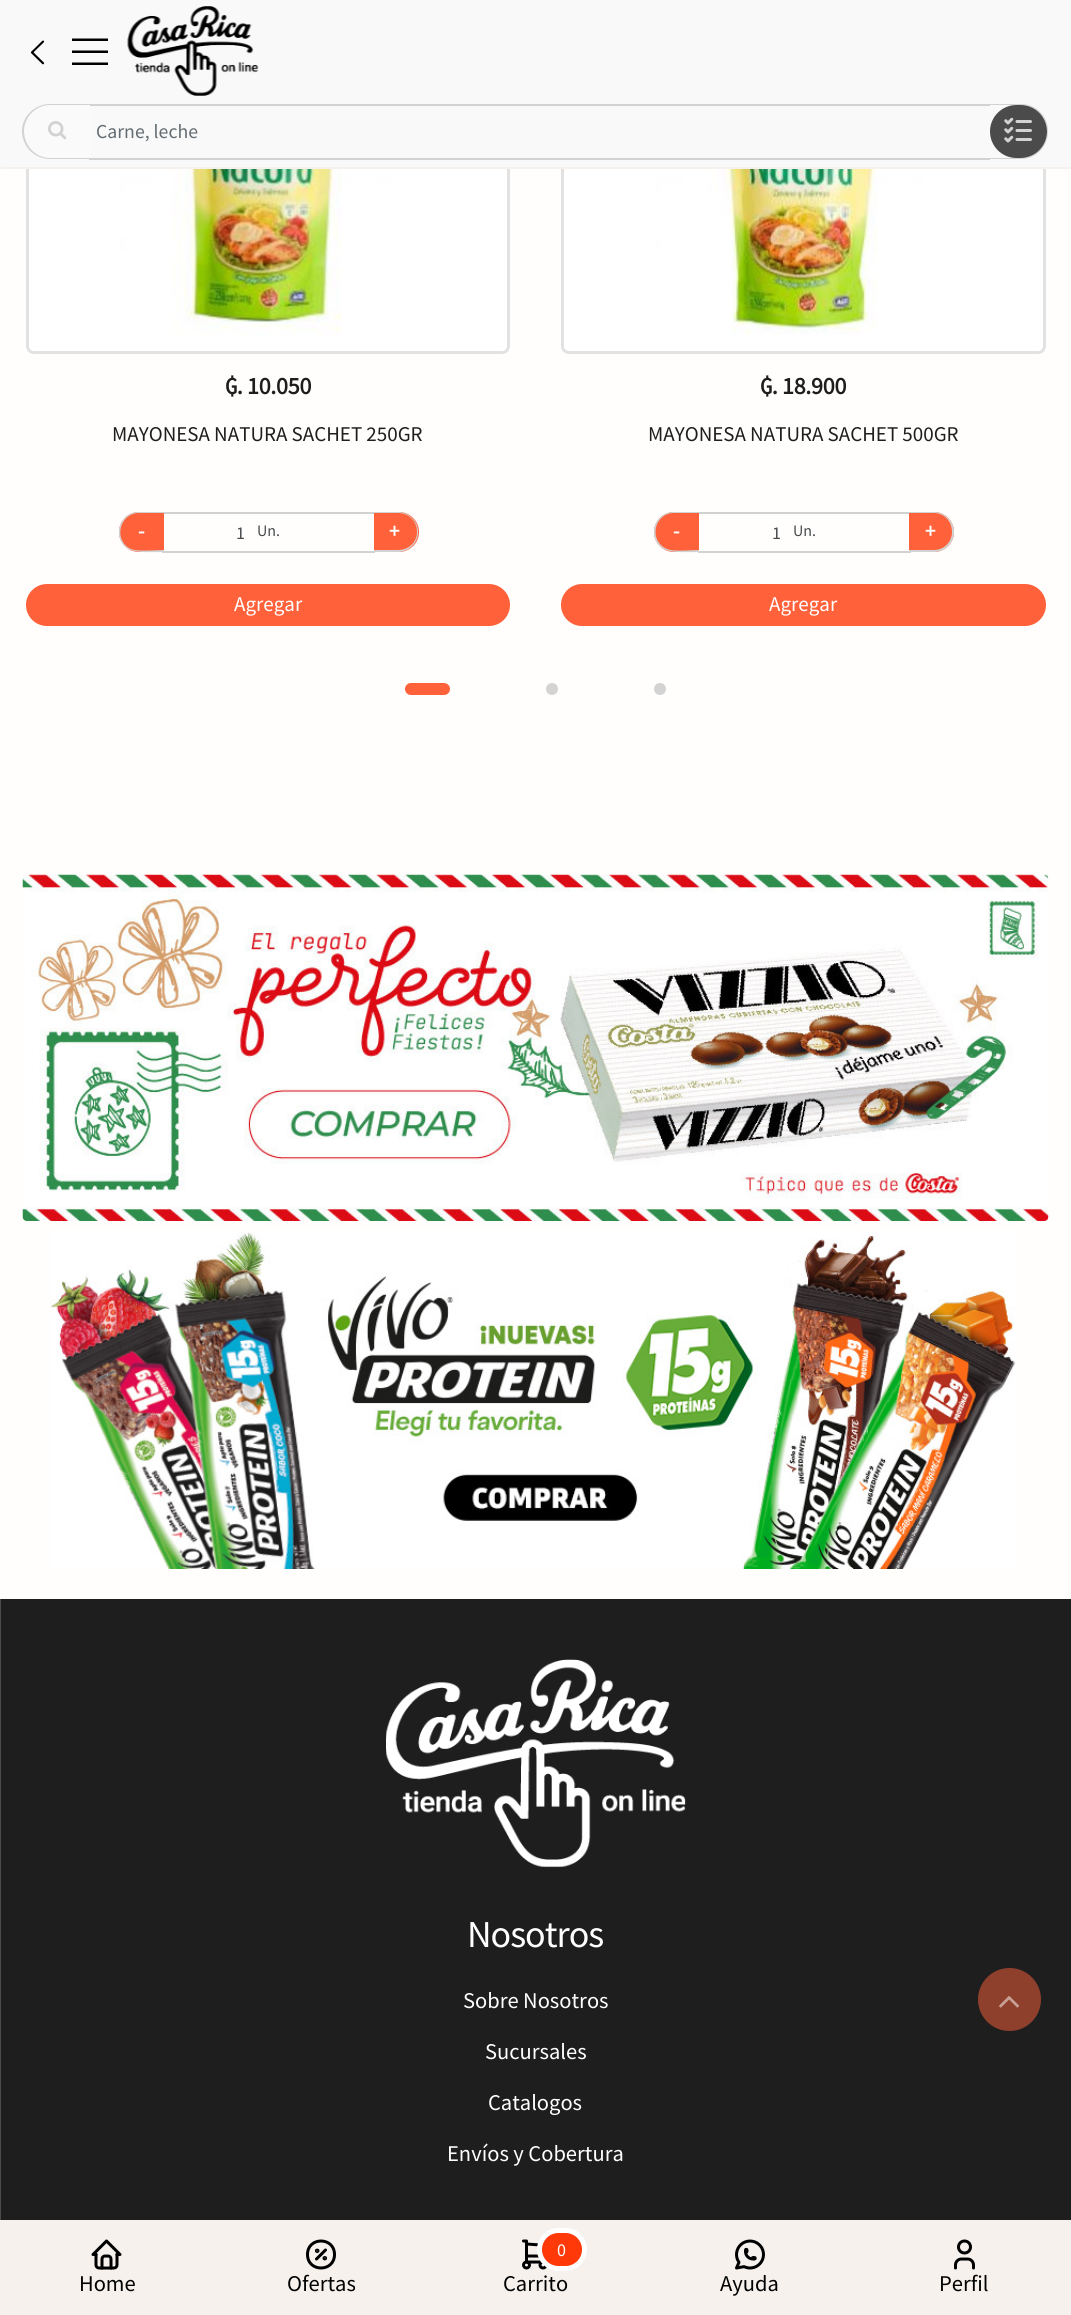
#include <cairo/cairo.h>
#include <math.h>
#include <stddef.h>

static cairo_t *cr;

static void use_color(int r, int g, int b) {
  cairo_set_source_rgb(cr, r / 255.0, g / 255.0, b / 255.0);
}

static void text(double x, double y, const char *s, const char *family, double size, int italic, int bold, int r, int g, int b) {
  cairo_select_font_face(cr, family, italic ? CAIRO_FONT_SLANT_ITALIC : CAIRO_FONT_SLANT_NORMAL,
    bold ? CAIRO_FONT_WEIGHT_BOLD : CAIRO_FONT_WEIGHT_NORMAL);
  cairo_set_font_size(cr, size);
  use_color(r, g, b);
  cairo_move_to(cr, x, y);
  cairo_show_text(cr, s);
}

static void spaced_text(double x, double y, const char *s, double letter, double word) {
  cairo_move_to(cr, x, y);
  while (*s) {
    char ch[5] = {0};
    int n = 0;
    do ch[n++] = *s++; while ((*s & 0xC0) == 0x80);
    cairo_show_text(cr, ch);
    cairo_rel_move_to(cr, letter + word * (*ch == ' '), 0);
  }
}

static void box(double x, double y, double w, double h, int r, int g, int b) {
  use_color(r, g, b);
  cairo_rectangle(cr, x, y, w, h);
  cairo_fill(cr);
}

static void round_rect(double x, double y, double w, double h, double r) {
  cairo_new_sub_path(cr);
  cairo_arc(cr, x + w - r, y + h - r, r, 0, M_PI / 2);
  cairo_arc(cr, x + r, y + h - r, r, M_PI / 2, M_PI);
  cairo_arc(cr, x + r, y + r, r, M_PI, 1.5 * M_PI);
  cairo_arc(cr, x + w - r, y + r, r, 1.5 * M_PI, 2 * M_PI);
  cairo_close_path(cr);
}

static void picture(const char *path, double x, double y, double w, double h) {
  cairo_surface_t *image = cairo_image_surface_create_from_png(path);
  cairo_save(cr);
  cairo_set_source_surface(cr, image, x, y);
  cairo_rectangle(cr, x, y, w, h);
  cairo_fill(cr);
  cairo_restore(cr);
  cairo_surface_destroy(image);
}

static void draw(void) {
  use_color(255, 254, 252);
  cairo_paint(cr);
  use_color(255, 255, 255);
  round_rect(27.5, 45.5, 481, 307, 6.5);
  cairo_fill_preserve(cr);
  use_color(226, 226, 226);
  cairo_set_line_width(cr, 3);
  cairo_stroke(cr);
  use_color(255, 255, 255);
  round_rect(562.5, 45.5, 482, 307, 6.5);
  cairo_fill_preserve(cr);
  use_color(226, 226, 226);
  cairo_stroke(cr);
  box(1, 0, 1070, 167, 249, 249, 249);
  box(0, 0, 1, 168, 250, 250, 250);
  box(0, 167, 1071, 2, 246, 241, 237);
  box(0, 167, 1, 2, 248, 244, 241);
  picture("img_01.png", 30, 40, 15, 25);
  use_color(0, 0, 0);
  cairo_new_path(cr);
  cairo_move_to(cr, 72, 38.5);
  cairo_line_to(cr, 72, 41);
  cairo_line_to(cr, 108, 41);
  cairo_line_to(cr, 108, 38.5);
  cairo_close_path(cr);
  cairo_move_to(cr, 72, 53);
  cairo_line_to(cr, 108, 53);
  cairo_line_to(cr, 108, 50.5);
  cairo_line_to(cr, 72, 50.5);
  cairo_close_path(cr);
  cairo_move_to(cr, 72, 65);
  cairo_line_to(cr, 108, 65);
  cairo_line_to(cr, 108, 62.5);
  cairo_line_to(cr, 72, 62.5);
  cairo_close_path(cr);
  cairo_fill(cr);
  picture("img_02.png", 127, 6, 132, 90);
  box(89, 104, 901, 2, 210, 210, 210);
  box(89, 158, 901, 2, 210, 210, 210);
  use_color(250, 250, 250);
  cairo_new_path(cr);
  cairo_move_to(cr, 50.5, 104);
  cairo_line_to(cr, 90, 104);
  cairo_line_to(cr, 90, 159);
  cairo_line_to(cr, 50.5, 159);
  cairo_curve_to(cr, 35.5, 159, 23, 146.5, 23, 131.5);
  cairo_curve_to(cr, 23, 116.5, 35.5, 104, 50.5, 104);
  cairo_close_path(cr);
  cairo_fill(cr);
  use_color(210, 210, 210);
  cairo_set_fill_rule(cr, CAIRO_FILL_RULE_EVEN_ODD);
  cairo_new_path(cr);
  cairo_move_to(cr, 50, 104);
  cairo_line_to(cr, 90, 104);
  cairo_line_to(cr, 90, 159);
  cairo_line_to(cr, 50, 159);
  cairo_curve_to(cr, 35, 159, 22, 147, 22, 131);
  cairo_curve_to(cr, 22, 116, 35, 104, 50, 104);
  cairo_close_path(cr);
  cairo_move_to(cr, 50, 105);
  cairo_line_to(cr, 90, 105);
  cairo_line_to(cr, 90, 158);
  cairo_line_to(cr, 50, 158);
  cairo_curve_to(cr, 36, 158, 24, 146, 24, 131);
  cairo_curve_to(cr, 24, 117, 36, 105, 50, 105);
  cairo_close_path(cr);
  cairo_fill(cr);
  picture("img_03.png", 48, 121, 19, 19);
  cairo_new_path(cr);
  cairo_move_to(cr, 990, 104);
  cairo_line_to(cr, 1021, 104);
  cairo_curve_to(cr, 1036, 104, 1048, 116, 1048, 131);
  cairo_curve_to(cr, 1048, 147, 1036, 159, 1021, 159);
  cairo_line_to(cr, 990, 159);
  cairo_close_path(cr);
  cairo_move_to(cr, 990, 105);
  cairo_line_to(cr, 1021, 105);
  cairo_curve_to(cr, 1035, 105, 1047, 117, 1047, 131);
  cairo_curve_to(cr, 1047, 146, 1035, 158, 1021, 158);
  cairo_line_to(cr, 990, 158);
  cairo_close_path(cr);
  cairo_fill(cr);
  use_color(75, 75, 75);
  round_rect(990, 105, 57, 53, 26.5);
  cairo_fill(cr);
  picture("img_04.png", 1004, 117, 28, 26);
  picture("img_05.png", 102, 169, 333, 166);
  box(162, 512, 213, 2, 210, 210, 210);
  box(162, 551, 213, 2, 210, 210, 210);
  use_color(255, 98, 59);
  cairo_new_path(cr);
  cairo_move_to(cr, 139, 512);
  cairo_line_to(cr, 164, 512);
  cairo_line_to(cr, 164, 552);
  cairo_line_to(cr, 139, 552);
  cairo_curve_to(cr, 128, 552, 119, 543, 119, 532);
  cairo_curve_to(cr, 119, 521, 128, 512, 139, 512);
  cairo_close_path(cr);
  cairo_fill(cr);
  use_color(210, 210, 210);
  cairo_new_path(cr);
  cairo_move_to(cr, 139, 512);
  cairo_line_to(cr, 164, 512);
  cairo_line_to(cr, 164, 552);
  cairo_curve_to(cr, 155, 552, 138, 553, 131, 550);
  cairo_curve_to(cr, 111, 542, 117, 512, 139, 512);
  cairo_close_path(cr);
  cairo_move_to(cr, 139, 513);
  cairo_line_to(cr, 164, 513);
  cairo_line_to(cr, 164, 550);
  cairo_curve_to(cr, 156, 550, 138, 552, 131, 549);
  cairo_curve_to(cr, 113, 541, 119, 513, 139, 513);
  cairo_close_path(cr);
  cairo_fill(cr);
  use_color(255, 98, 59);
  cairo_new_path(cr);
  cairo_move_to(cr, 374, 512);
  cairo_line_to(cr, 399, 512);
  cairo_curve_to(cr, 410, 512, 419, 521, 419, 532);
  cairo_curve_to(cr, 419, 543, 410, 552, 399, 552);
  cairo_line_to(cr, 374, 552);
  cairo_close_path(cr);
  cairo_fill(cr);
  use_color(210, 210, 210);
  cairo_new_path(cr);
  cairo_move_to(cr, 374, 512);
  cairo_line_to(cr, 398, 512);
  cairo_curve_to(cr, 409, 512, 418, 521, 418, 532);
  cairo_curve_to(cr, 418, 543, 409, 552, 398, 552);
  cairo_line_to(cr, 374, 552);
  cairo_close_path(cr);
  cairo_move_to(cr, 374, 513);
  cairo_line_to(cr, 398, 513);
  cairo_curve_to(cr, 409, 513, 417, 521, 417, 532);
  cairo_curve_to(cr, 417, 542, 409, 550, 398, 550);
  cairo_line_to(cr, 374, 550);
  cairo_close_path(cr);
  cairo_fill(cr);
  use_color(255, 98, 59);
  round_rect(26, 584, 484, 42, 21);
  cairo_fill(cr);
  picture("img_06.png", 638, 169, 332, 166);
  box(698, 512, 213, 2, 210, 210, 210);
  box(698, 551, 213, 2, 210, 210, 210);
  use_color(255, 98, 59);
  cairo_new_path(cr);
  cairo_move_to(cr, 674, 512);
  cairo_line_to(cr, 699, 512);
  cairo_line_to(cr, 699, 552);
  cairo_line_to(cr, 674, 552);
  cairo_curve_to(cr, 663, 552, 654, 543, 654, 532);
  cairo_curve_to(cr, 654, 521, 663, 512, 674, 512);
  cairo_close_path(cr);
  cairo_fill(cr);
  use_color(210, 210, 210);
  cairo_new_path(cr);
  cairo_move_to(cr, 674, 512);
  cairo_line_to(cr, 699, 512);
  cairo_line_to(cr, 699, 552);
  cairo_curve_to(cr, 691, 552, 673, 553, 666, 550);
  cairo_curve_to(cr, 646, 542, 652, 512, 674, 512);
  cairo_close_path(cr);
  cairo_move_to(cr, 674, 513);
  cairo_line_to(cr, 699, 513);
  cairo_line_to(cr, 699, 550);
  cairo_curve_to(cr, 691, 550, 674, 552, 667, 549);
  cairo_curve_to(cr, 648, 541, 654, 513, 674, 513);
  cairo_close_path(cr);
  cairo_fill(cr);
  use_color(255, 98, 59);
  cairo_new_path(cr);
  cairo_move_to(cr, 909, 512);
  cairo_line_to(cr, 934, 512);
  cairo_curve_to(cr, 945, 512, 954, 521, 954, 532);
  cairo_curve_to(cr, 954, 543, 945, 552, 934, 552);
  cairo_line_to(cr, 909, 552);
  cairo_close_path(cr);
  cairo_fill(cr);
  use_color(210, 210, 210);
  cairo_new_path(cr);
  cairo_move_to(cr, 909, 512);
  cairo_line_to(cr, 934, 512);
  cairo_curve_to(cr, 945, 512, 954, 521, 954, 532);
  cairo_curve_to(cr, 954, 543, 945, 552, 934, 552);
  cairo_line_to(cr, 909, 552);
  cairo_close_path(cr);
  cairo_move_to(cr, 909, 513);
  cairo_line_to(cr, 934, 513);
  cairo_curve_to(cr, 944, 513, 952, 521, 952, 532);
  cairo_curve_to(cr, 952, 542, 944, 550, 934, 550);
  cairo_line_to(cr, 909, 550);
  cairo_close_path(cr);
  cairo_fill(cr);
  use_color(255, 98, 59);
  round_rect(561, 584, 485, 42, 21);
  cairo_fill(cr);
  round_rect(405, 683, 45, 12, 6);
  cairo_fill(cr);
  use_color(211, 211, 211);
  cairo_arc(cr, 552, 689, 6, 0, 2 * M_PI);
  cairo_fill(cr);
  cairo_arc(cr, 660, 689, 6, 0, 2 * M_PI);
  cairo_fill(cr);
  picture("img_07.png", 22, 874, 1027, 347);
  picture("img_08.png", 51, 1230, 965, 339);
  box(1, 1599, 1070, 621, 30, 30, 30);
  box(0, 1599, 1, 621, 75, 75, 75);
  picture("img_09.png", 386, 1659, 300, 209);
  box(0, 2220, 1071, 95, 246, 241, 237);
  picture("img_10.png", 91, 2239, 31, 31);
  cairo_new_path(cr);
  cairo_move_to(cr, 316.5, 2259);
  cairo_line_to(cr, 325.5, 2250);
  use_color(0, 0, 0);
  cairo_set_line_cap(cr, CAIRO_LINE_CAP_ROUND);
  cairo_set_line_join(cr, CAIRO_LINE_JOIN_ROUND);
  cairo_stroke(cr);
  cairo_arc(cr, 317.2, 2250.8, 0.8, 0, 2 * M_PI);
  cairo_fill_preserve(cr);
  cairo_set_line_cap(cr, CAIRO_LINE_CAP_BUTT);
  cairo_set_line_join(cr, CAIRO_LINE_JOIN_MITER);
  cairo_stroke(cr);
  cairo_arc(cr, 324.8, 2258.2, 0.8, 0, 2 * M_PI);
  cairo_fill_preserve(cr);
  cairo_stroke(cr);
  cairo_new_path(cr);
  cairo_move_to(cr, 307.5, 2254.5);
  cairo_curve_to(cr, 307.5, 2272.5, 334.5, 2272.5, 334.5, 2254.5);
  cairo_curve_to(cr, 334.5, 2236.5, 307.5, 2236.5, 307.5, 2254.5);
  cairo_set_line_cap(cr, CAIRO_LINE_CAP_ROUND);
  cairo_set_line_join(cr, CAIRO_LINE_JOIN_ROUND);
  cairo_stroke(cr);
  picture("img_11.png", 522, 2239, 25, 31);
  use_color(255, 57, 8);
  round_rect(539.5, 2230.5, 45, 38, 19);
  cairo_fill_preserve(cr);
  use_color(255, 255, 255);
  cairo_set_line_width(cr, 5);
  cairo_set_line_cap(cr, CAIRO_LINE_CAP_BUTT);
  cairo_set_line_join(cr, CAIRO_LINE_JOIN_MITER);
  cairo_stroke(cr);
  picture("img_12.png", 735, 2239, 30, 31);
  picture("img_13.png", 954, 2239, 21, 31);
  use_color(143, 64, 45);
  cairo_arc(cr, 1009.5, 1999.5, 31.5, 0, 2 * M_PI);
  cairo_fill(cr);
  picture("img_14.png", 999, 1996, 20, 12);
  text(96, 138, "Carne, leche", "Source Sans Pro", 19.75, 0, 0, 99, 108, 114);
  cairo_select_font_face(cr, "Source Sans Pro", CAIRO_FONT_SLANT_NORMAL, CAIRO_FONT_WEIGHT_BOLD);
  cairo_set_font_size(cr, 24);
  use_color(30, 30, 30);
  spaced_text(225, 394, "₲. 10.050", -0.25, 0);
  text(112, 441, "MAYONESA NATURA SACHET 250GR", "Source Sans Pro", 21, 0, 0, 30, 30, 30);
  text(138, 538, "-", "Source Sans Pro", 21, 0, 1, 255, 255, 255);
  text(236, 539, "1", "Source Sans Pro", 18, 0, 0, 70, 74, 76);
  text(257, 536, "Un.", "Source Sans Pro", 16, 0, 0, 70, 74, 76);
  text(389, 538, "+", "Source Sans Pro", 21, 0, 1, 255, 255, 255);
  text(234, 611, "Agregar", "Source Sans Pro", 21, 0, 0, 255, 255, 255);
  cairo_select_font_face(cr, "Source Sans Pro", CAIRO_FONT_SLANT_NORMAL, CAIRO_FONT_WEIGHT_BOLD);
  cairo_set_font_size(cr, 24);
  use_color(30, 30, 30);
  spaced_text(760, 394, "₲. 18.900", -0.25, 0);
  text(648, 441, "MAYONESA NATURA SACHET 500GR", "Source Sans Pro", 21, 0, 0, 30, 30, 30);
  text(673, 538, "-", "Source Sans Pro", 21, 0, 1, 255, 255, 255);
  text(772, 539, "1", "Source Sans Pro", 18, 0, 0, 70, 74, 76);
  text(793, 536, "Un.", "Source Sans Pro", 16, 0, 0, 70, 74, 76);
  text(925, 538, "+", "Source Sans Pro", 21, 0, 1, 255, 255, 255);
  text(769, 611, "Agregar", "Source Sans Pro", 21, 0, 0, 255, 255, 255);
  cairo_set_font_size(cr, 38);
  spaced_text(467, 1947, "Nosotros", -1, 0);
  text(463, 2008, "Sobre Nosotros", "Source Sans Pro", 22.5, 0, 0, 255, 255, 255);
  text(485, 2059, "Sucursales", "Source Sans Pro", 22.5, 0, 0, 255, 255, 255);
  text(488, 2110, "Catalogos", "Source Sans Pro", 22.5, 0, 0, 255, 255, 255);
  text(447, 2161, "Envíos y Cobertura", "Source Sans Pro", 22.5, 0, 0, 255, 255, 255);
  text(79, 2291, "Home", "Source Sans Pro", 22.5, 0, 0, 0, 0, 0);
  text(287, 2291, "Ofertas", "Source Sans Pro", 22.5, 0, 0, 0, 0, 0);
  text(557, 2256, "0", "Source Sans Pro", 18, 0, 0, 255, 255, 255);
  text(503, 2291, "Carrito", "Source Sans Pro", 22.5, 0, 0, 0, 0, 0);
  text(720, 2291, "Ayuda", "Source Sans Pro", 22.5, 0, 0, 0, 0, 0);
  text(939, 2291, "Perfil", "Source Sans Pro", 22.5, 0, 0, 0, 0, 0);
}

int main(void) {
  cairo_surface_t *surface = cairo_image_surface_create(CAIRO_FORMAT_RGB24, 1071, 2315);
  cr = cairo_create(surface);
  cairo_font_options_t *options = cairo_font_options_create();
  cairo_font_options_set_hint_metrics(options, CAIRO_HINT_METRICS_OFF);
  cairo_font_options_set_hint_style(options, CAIRO_HINT_STYLE_NONE);
  cairo_set_font_options(cr, options);
  cairo_set_miter_limit(cr, 4);
  draw();
  cairo_surface_write_to_png(surface, "out.png");
  cairo_font_options_destroy(options);
  cairo_destroy(cr);
  cairo_surface_destroy(surface);
  return 0;
}
